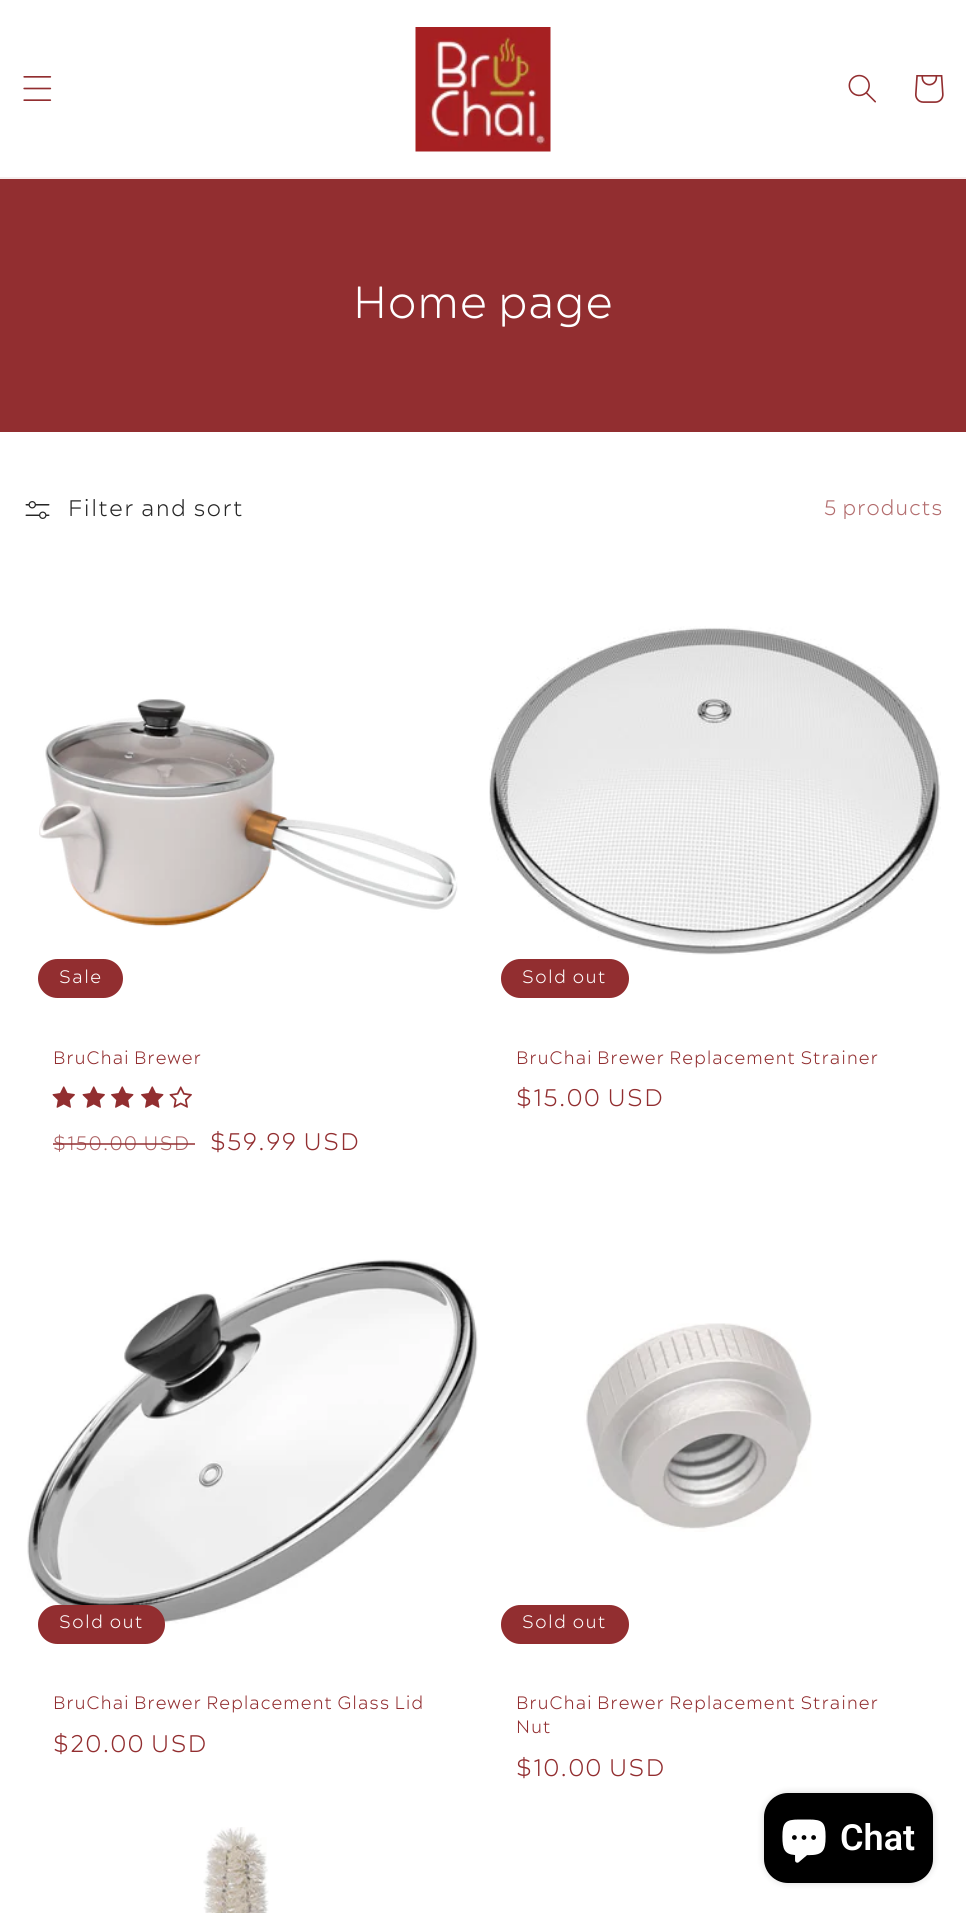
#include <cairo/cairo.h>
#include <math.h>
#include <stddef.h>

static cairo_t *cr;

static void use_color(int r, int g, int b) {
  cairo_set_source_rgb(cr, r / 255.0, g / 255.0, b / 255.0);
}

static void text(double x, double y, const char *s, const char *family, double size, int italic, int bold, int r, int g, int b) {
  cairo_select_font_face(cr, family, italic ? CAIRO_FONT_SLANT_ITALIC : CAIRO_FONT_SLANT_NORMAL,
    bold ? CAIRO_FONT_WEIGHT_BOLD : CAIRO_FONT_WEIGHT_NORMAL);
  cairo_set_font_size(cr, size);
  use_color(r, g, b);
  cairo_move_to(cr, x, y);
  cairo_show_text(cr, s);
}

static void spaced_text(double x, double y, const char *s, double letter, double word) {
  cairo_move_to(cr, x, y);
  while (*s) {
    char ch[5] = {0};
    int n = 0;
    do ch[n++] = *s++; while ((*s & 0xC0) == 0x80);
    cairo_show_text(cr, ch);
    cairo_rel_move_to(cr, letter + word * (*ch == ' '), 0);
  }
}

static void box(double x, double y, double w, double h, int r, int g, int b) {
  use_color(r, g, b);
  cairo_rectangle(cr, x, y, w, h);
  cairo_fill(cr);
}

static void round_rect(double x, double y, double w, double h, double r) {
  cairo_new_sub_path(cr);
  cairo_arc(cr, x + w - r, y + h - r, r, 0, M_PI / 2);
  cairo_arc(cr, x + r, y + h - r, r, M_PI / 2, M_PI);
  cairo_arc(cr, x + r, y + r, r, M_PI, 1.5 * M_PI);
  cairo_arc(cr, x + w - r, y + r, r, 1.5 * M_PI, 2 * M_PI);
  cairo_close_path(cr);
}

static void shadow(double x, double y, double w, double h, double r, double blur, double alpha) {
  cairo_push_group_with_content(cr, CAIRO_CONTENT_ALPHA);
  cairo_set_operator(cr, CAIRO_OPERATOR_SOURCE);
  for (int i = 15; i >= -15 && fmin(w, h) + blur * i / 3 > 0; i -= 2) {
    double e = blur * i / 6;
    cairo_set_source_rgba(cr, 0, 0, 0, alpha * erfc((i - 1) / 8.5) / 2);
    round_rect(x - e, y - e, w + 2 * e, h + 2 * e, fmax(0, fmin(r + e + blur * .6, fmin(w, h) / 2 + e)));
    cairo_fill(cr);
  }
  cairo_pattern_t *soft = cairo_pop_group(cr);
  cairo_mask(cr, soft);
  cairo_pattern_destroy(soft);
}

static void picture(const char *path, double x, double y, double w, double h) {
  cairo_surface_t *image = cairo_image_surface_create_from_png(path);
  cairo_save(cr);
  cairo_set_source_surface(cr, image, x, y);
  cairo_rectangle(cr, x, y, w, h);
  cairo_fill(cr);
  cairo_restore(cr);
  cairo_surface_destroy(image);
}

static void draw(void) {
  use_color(255, 255, 255);
  cairo_paint(cr);
  box(0, 177, 966, 2, 246, 238, 238);
  picture("img_01.png", 23, 76, 29, 25);
  picture("img_02.png", 415, 27, 136, 125);
  picture("img_03.png", 848, 74, 28, 29);
  picture("img_04.png", 915, 75, 29, 28);
  box(0, 179, 966, 253, 146, 46, 48);
  picture("img_05.png", 25, 501, 25, 18);
  picture("img_06.png", 39, 698, 419, 229);
  round_rect(39, 960, 83, 37, 18.5);
  cairo_fill_preserve(cr);
  cairo_stroke(cr);
  picture("img_07.png", 52, 1086, 23, 22);
  picture("img_07.png", 82, 1086, 23, 22);
  picture("img_08.png", 111, 1086, 23, 22);
  picture("img_08.png", 141, 1086, 23, 22);
  picture("img_09.png", 169, 1086, 23, 22);
  picture("img_10.png", 489, 626, 452, 329);
  round_rect(501, 959, 128, 39, 19.5);
  cairo_fill(cr);
  round_rect(502, 960, 126, 37, 18.5);
  cairo_set_source_rgba(cr, 0.573, 0.18, 0.188, 0.1);
  cairo_stroke(cr);
  picture("img_11.png", 27, 1259, 451, 365);
  use_color(146, 46, 48);
  round_rect(38, 1605, 127, 39, 19.5);
  cairo_fill(cr);
  round_rect(39, 1606, 125, 37, 18.5);
  cairo_set_source_rgba(cr, 0.573, 0.18, 0.188, 0.1);
  cairo_stroke(cr);
  picture("img_12.png", 584, 1323, 228, 209);
  use_color(146, 46, 48);
  round_rect(501, 1605, 128, 39, 19.5);
  cairo_fill(cr);
  round_rect(502, 1606, 126, 37, 18.5);
  cairo_set_source_rgba(cr, 0.573, 0.18, 0.188, 0.1);
  cairo_stroke(cr);
  picture("img_13.png", 203, 1827, 66, 86);
  use_color(0, 0, 0);
  shadow(764, 1793, 169, 90, 24, 4, 0.15);
  use_color(0, 0, 0);
  round_rect(764, 1793, 169, 90, 24);
  cairo_fill(cr);
  picture("img_14.png", 782, 1819, 44, 44);
  cairo_select_font_face(cr, "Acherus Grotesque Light", CAIRO_FONT_SLANT_NORMAL, CAIRO_FONT_WEIGHT_NORMAL);
  cairo_set_font_size(cr, 45);
  use_color(255, 255, 255);
  spaced_text(353, 318, "Home page", 0.9, 0);
  cairo_set_font_size(cr, 22.5);
  use_color(38, 38, 38);
  spaced_text(68, 516, "Filter and sort", 1.5, 0);
  cairo_set_font_size(cr, 21);
  use_color(179, 109, 110);
  spaced_text(824, 515, "5 products", 0.9, 0);
  cairo_set_font_size(cr, 18);
  use_color(255, 255, 255);
  spaced_text(59, 983, "Sale", 1.5, 0);
  use_color(146, 46, 48);
  spaced_text(53, 1064, "BruChai Brewer", 0.9, 0);
  cairo_set_font_size(cr, 19.5);
  use_color(173, 98, 100);
  spaced_text(53, 1150, "$150.00 USD", 1.5, 0);
  cairo_set_source_rgba(cr, 0.573, 0.18, 0.188, 0.75);
  cairo_rectangle(cr, 53, 1143, 142, 2);
  cairo_fill(cr);
  cairo_set_font_size(cr, 24);
  use_color(146, 46, 48);
  spaced_text(210, 1150, "$59.99 USD", 1.5, 0);
  cairo_set_font_size(cr, 18);
  use_color(255, 255, 255);
  spaced_text(522, 983, "Sold out", 1.5, 0);
  use_color(146, 46, 48);
  spaced_text(516, 1064, "BruChai Brewer Replacement Strainer", 0.9, 0);
  cairo_set_font_size(cr, 24);
  spaced_text(516, 1106, "$15.00 USD", 1.5, 0);
  cairo_set_font_size(cr, 18);
  use_color(255, 255, 255);
  spaced_text(59, 1628, "Sold out", 1.5, 0);
  use_color(146, 46, 48);
  spaced_text(53, 1709, "BruChai Brewer Replacement Glass Lid", 0.9, 0);
  cairo_set_font_size(cr, 24);
  spaced_text(53, 1752, "$20.00 USD", 1.5, 0);
  cairo_set_font_size(cr, 18);
  use_color(255, 255, 255);
  spaced_text(522, 1628, "Sold out", 1.5, 0);
  use_color(146, 46, 48);
  spaced_text(516, 1709, "BruChai Brewer Replacement Strainer", 0.9, 0);
  spaced_text(516, 1733, "Nut", 0.9, 0);
  cairo_set_font_size(cr, 24);
  spaced_text(516, 1776, "$10.00 USD", 1.5, 0);
  text(840, 1850, "Chat", "Roboto SemiBold", 36, 0, 0, 255, 255, 255);
}

int main(void) {
  cairo_surface_t *surface = cairo_image_surface_create(CAIRO_FORMAT_RGB24, 966, 1913);
  cr = cairo_create(surface);
  cairo_font_options_t *options = cairo_font_options_create();
  cairo_font_options_set_hint_metrics(options, CAIRO_HINT_METRICS_OFF);
  cairo_font_options_set_hint_style(options, CAIRO_HINT_STYLE_NONE);
  cairo_set_font_options(cr, options);
  cairo_set_miter_limit(cr, 4);
  draw();
  cairo_surface_write_to_png(surface, "out.png");
  cairo_font_options_destroy(options);
  cairo_destroy(cr);
  cairo_surface_destroy(surface);
  return 0;
}
